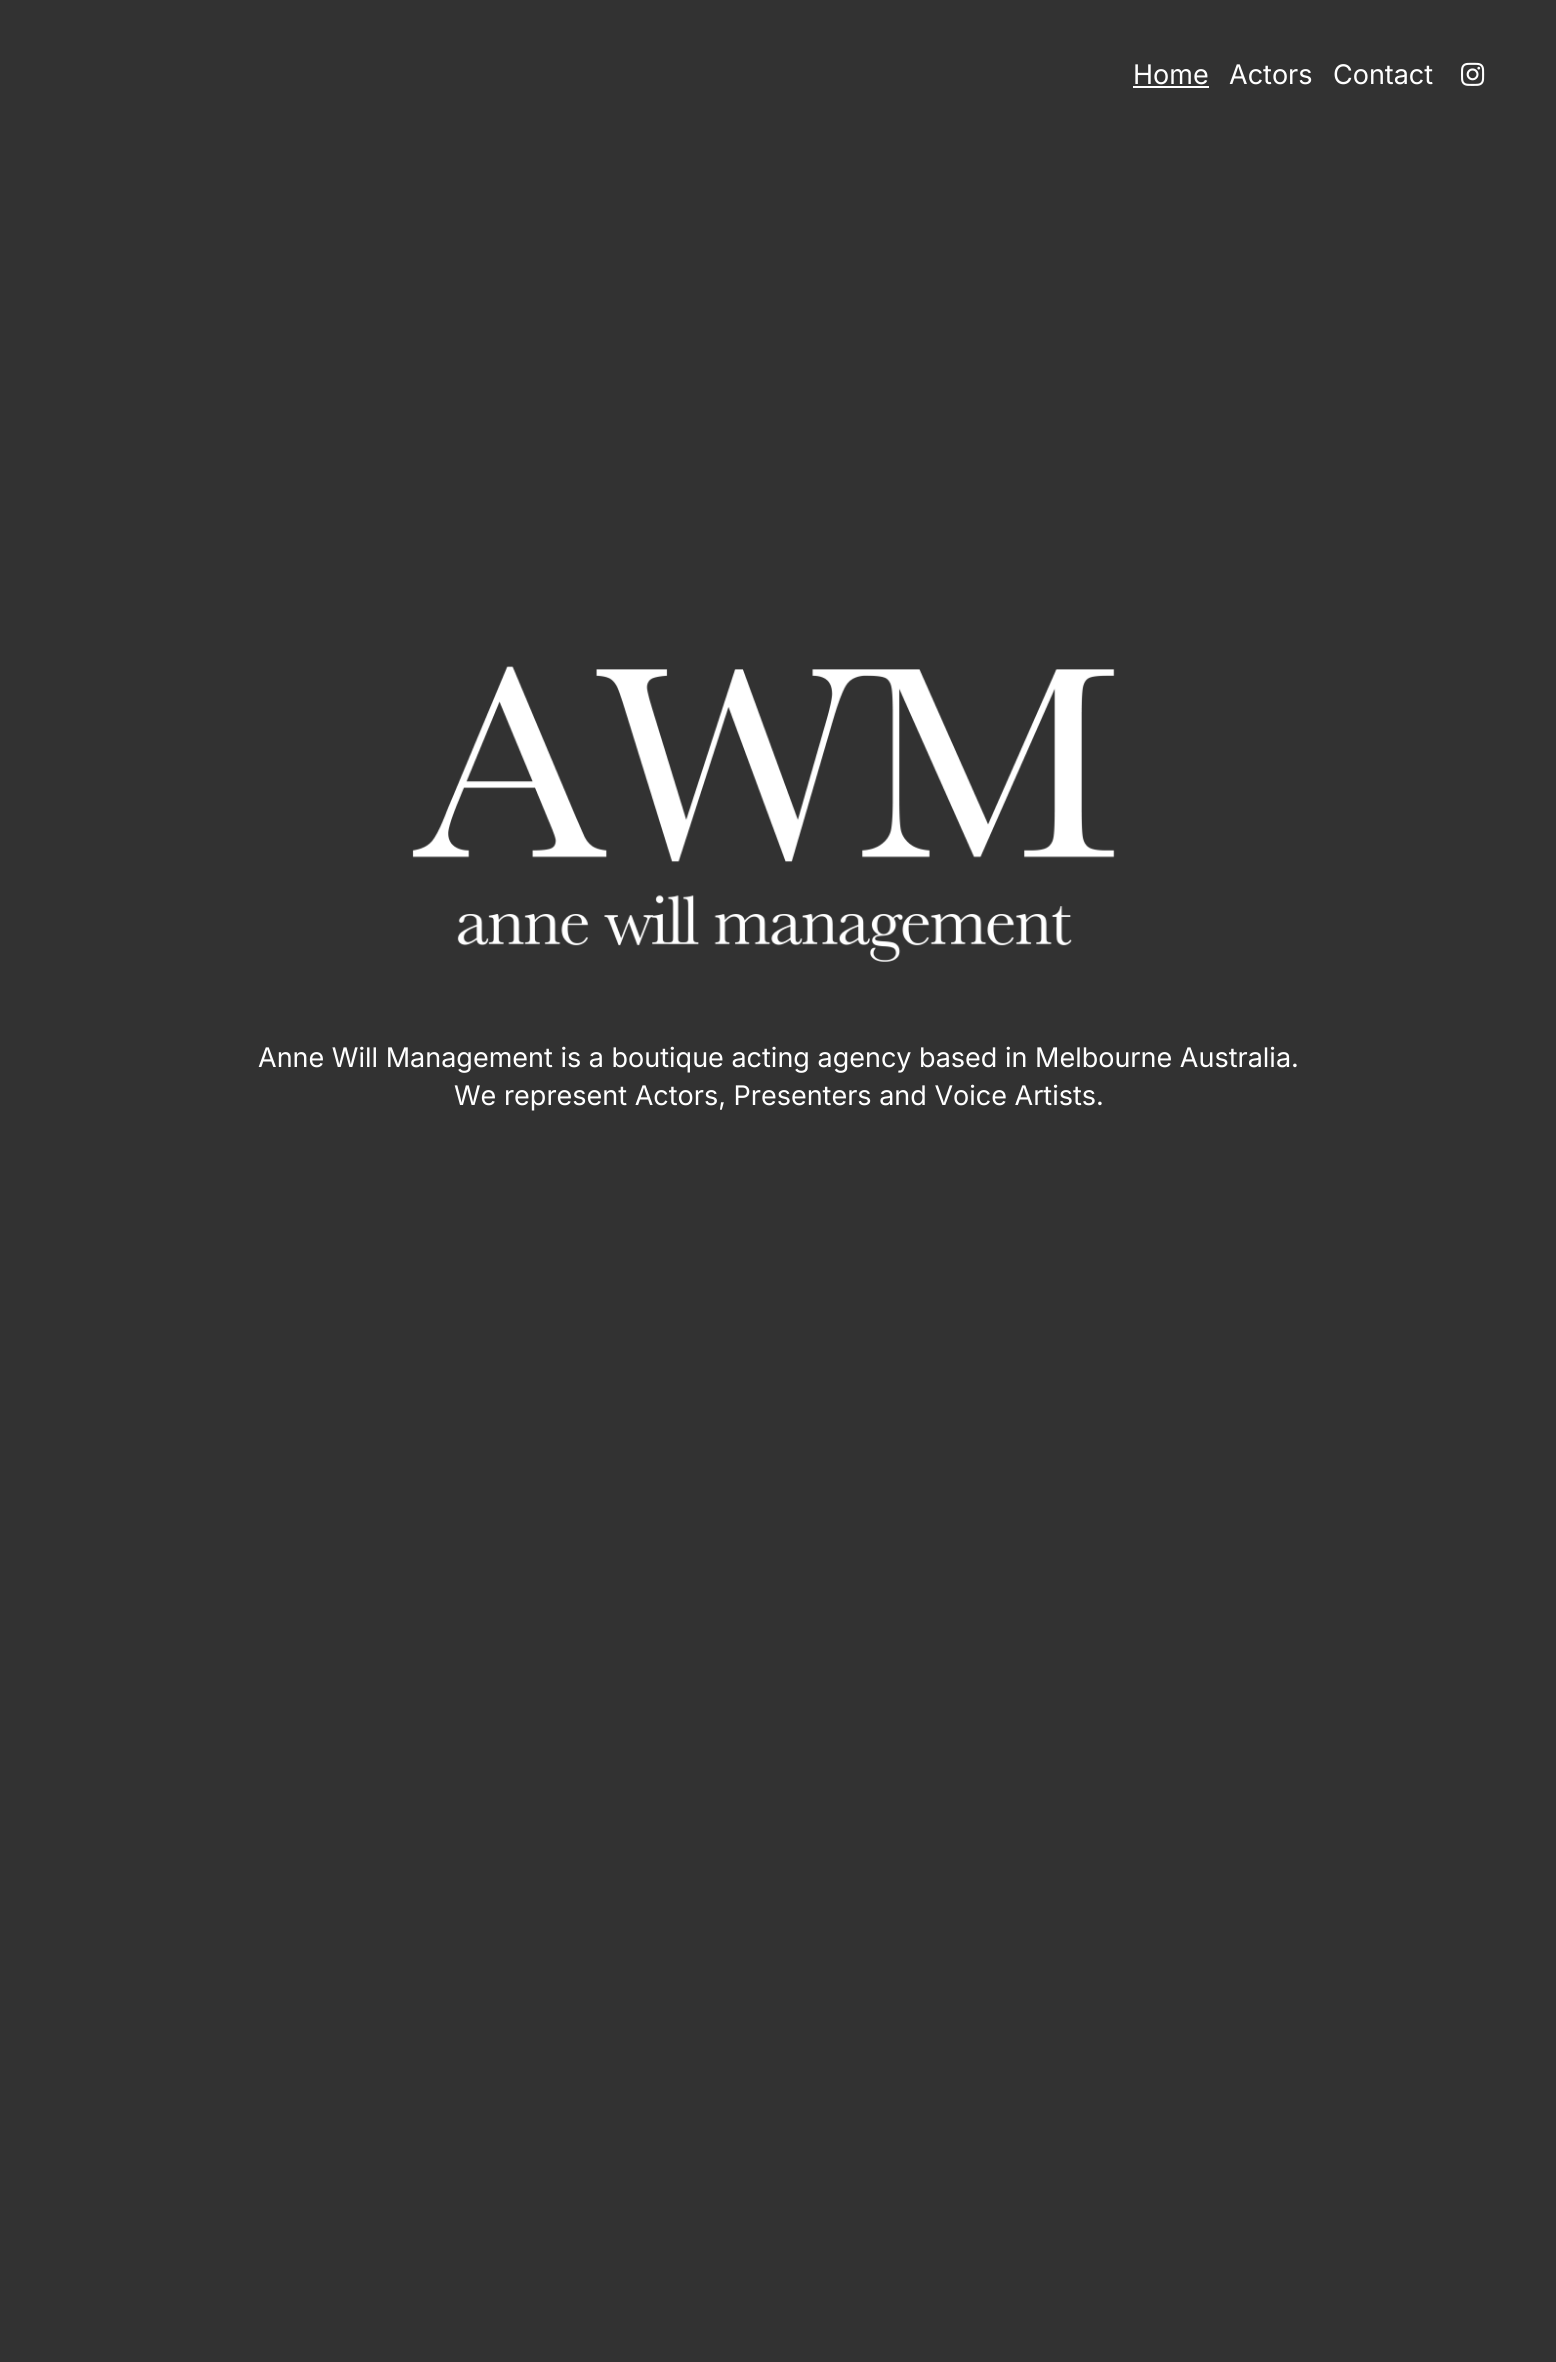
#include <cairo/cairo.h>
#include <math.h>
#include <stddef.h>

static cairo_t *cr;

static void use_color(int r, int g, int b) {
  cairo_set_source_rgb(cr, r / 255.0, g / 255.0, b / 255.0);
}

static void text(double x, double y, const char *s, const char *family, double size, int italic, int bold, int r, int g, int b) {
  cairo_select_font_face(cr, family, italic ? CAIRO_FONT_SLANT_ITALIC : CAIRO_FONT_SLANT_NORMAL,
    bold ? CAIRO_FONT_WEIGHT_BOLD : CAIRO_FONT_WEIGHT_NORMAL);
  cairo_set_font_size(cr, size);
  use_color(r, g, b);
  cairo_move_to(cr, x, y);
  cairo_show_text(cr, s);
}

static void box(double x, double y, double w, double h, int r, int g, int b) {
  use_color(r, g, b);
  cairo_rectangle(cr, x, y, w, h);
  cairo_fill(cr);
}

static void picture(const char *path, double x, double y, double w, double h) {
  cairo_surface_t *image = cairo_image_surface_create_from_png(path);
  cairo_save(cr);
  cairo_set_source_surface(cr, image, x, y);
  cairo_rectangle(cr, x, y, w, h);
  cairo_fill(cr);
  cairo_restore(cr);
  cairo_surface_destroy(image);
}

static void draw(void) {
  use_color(50, 50, 50);
  cairo_paint(cr);
  box(1133, 86, 76, 2, 255, 255, 255);
  picture("img_01.png", 1461, 62, 24, 24);
  picture("img_02.png", 412, 666, 703, 296);
  text(1133, 84, "Home", "Inter", 27, 0, 0, 255, 255, 255);
  text(1229, 84, "Actors", "Inter", 27, 0, 0, 255, 255, 255);
  text(1333, 84, "Contact", "Inter", 27, 0, 0, 255, 255, 255);
  text(258, 1067, "Anne Will Management is a boutique acting agency based in Melbourne Australia.", "Inter", 27, 0, 0, 255, 255, 255);
  text(454, 1105, "We represent Actors, Presenters and Voice Artists.", "Inter", 27, 0, 0, 255, 255, 255);
}

int main(void) {
  cairo_surface_t *surface = cairo_image_surface_create(CAIRO_FORMAT_RGB24, 1556, 2362);
  cr = cairo_create(surface);
  cairo_font_options_t *options = cairo_font_options_create();
  cairo_font_options_set_hint_metrics(options, CAIRO_HINT_METRICS_OFF);
  cairo_font_options_set_hint_style(options, CAIRO_HINT_STYLE_NONE);
  cairo_set_font_options(cr, options);
  cairo_set_miter_limit(cr, 4);
  draw();
  cairo_surface_write_to_png(surface, "out.png");
  cairo_font_options_destroy(options);
  cairo_destroy(cr);
  cairo_surface_destroy(surface);
  return 0;
}
